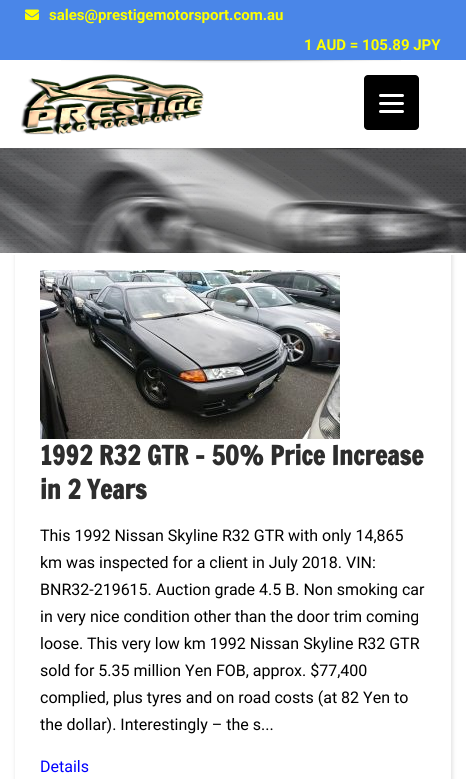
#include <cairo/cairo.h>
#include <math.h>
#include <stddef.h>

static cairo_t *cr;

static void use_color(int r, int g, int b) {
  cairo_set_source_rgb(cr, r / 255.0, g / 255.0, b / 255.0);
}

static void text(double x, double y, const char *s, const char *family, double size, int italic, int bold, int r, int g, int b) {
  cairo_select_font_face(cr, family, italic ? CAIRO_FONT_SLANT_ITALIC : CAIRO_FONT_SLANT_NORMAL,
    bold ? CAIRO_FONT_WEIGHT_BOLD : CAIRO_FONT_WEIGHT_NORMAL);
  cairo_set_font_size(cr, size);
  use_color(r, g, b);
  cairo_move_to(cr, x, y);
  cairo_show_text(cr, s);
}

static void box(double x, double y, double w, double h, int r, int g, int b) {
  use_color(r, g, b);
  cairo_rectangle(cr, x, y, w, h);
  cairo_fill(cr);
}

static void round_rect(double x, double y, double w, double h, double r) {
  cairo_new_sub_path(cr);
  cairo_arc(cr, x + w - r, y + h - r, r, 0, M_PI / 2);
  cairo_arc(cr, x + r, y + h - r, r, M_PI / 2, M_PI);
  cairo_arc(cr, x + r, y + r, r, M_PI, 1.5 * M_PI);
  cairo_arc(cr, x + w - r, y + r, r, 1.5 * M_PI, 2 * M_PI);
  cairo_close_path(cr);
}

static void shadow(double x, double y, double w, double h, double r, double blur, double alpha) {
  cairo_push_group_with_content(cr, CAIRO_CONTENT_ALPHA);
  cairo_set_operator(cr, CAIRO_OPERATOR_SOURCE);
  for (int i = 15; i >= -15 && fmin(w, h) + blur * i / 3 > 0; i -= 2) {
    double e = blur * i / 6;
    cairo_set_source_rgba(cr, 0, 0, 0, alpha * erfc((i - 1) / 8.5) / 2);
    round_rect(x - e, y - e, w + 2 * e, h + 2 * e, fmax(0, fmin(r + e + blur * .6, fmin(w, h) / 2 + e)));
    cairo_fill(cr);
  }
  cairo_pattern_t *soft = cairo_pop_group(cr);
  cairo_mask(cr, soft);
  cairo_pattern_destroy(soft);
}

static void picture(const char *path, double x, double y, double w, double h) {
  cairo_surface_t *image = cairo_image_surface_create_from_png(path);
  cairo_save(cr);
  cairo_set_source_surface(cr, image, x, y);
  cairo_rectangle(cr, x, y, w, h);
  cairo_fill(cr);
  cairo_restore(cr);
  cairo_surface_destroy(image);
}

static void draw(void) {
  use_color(255, 255, 255);
  cairo_paint(cr);
  box(0, 0, 466, 60, 74, 134, 232);
  picture("img_01.png", 25, 9, 14, 11);
  picture("img_02.png", 61, 60, 340, 3);
  picture("img_03.png", 21, 74, 183, 61);
  cairo_save(cr);
  cairo_set_fill_rule(cr, CAIRO_FILL_RULE_EVEN_ODD);
  cairo_new_path(cr);
  cairo_move_to(cr, 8, 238);
  cairo_line_to(cr, 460, 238);
  cairo_line_to(cr, 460, 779);
  cairo_line_to(cr, 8, 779);
  cairo_close_path(cr);
  cairo_move_to(cr, 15, 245);
  cairo_line_to(cr, 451, 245);
  cairo_line_to(cr, 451, 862);
  cairo_line_to(cr, 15, 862);
  cairo_close_path(cr);
  cairo_clip(cr);
  use_color(0, 0, 0);
  shadow(15, 245, 438, 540, 0, 2, 0.1);
  cairo_restore(cr);
  picture("img_05.png", 0, 148, 466, 105);
  picture("img_04.png", 85, 148, 293, 3);
  use_color(0, 0, 0);
  round_rect(364, 75, 55, 55, 4);
  cairo_fill(cr);
  use_color(255, 255, 255);
  round_rect(379, 102, 25, 3, 1.5);
  cairo_fill(cr);
  round_rect(379, 94, 25, 3, 1.5);
  cairo_fill(cr);
  round_rect(379, 110, 25, 3, 1.5);
  cairo_fill(cr);
  box(12, 253, 444, 2, 255, 255, 255);
  picture("img_06.png", 40, 270, 300, 169);
  text(49, 20, "sales@prestigemotorsport.com.au", "Roboto", 15, 0, 1, 255, 255, 0);
  text(304, 50, "1 AUD = 105.89 JPY", "Roboto", 15, 0, 1, 255, 255, 0);
  text(40, 465, "1992 R32 GTR – 50% Price Increase", "Francois One", 26, 0, 1, 45, 45, 45);
  text(40, 499, "in 2 Years", "Francois One", 26, 0, 1, 45, 45, 45);
  text(40, 541, "This 1992 Nissan Skyline R32 GTR with only 14,865", "Roboto", 16, 0, 0, 0, 0, 0);
  text(40, 568, "km was inspected for a client in July 2018. VIN:", "Roboto", 16, 0, 0, 0, 0, 0);
  text(40, 595, "BNR32-219615. Auction grade 4.5 B. Non smoking car", "Roboto", 16, 0, 0, 0, 0, 0);
  text(40, 622, "in very nice condition other than the door trim coming", "Roboto", 16, 0, 0, 0, 0, 0);
  text(40, 649, "loose. This very low km 1992 Nissan Skyline R32 GTR", "Roboto", 16, 0, 0, 0, 0, 0);
  text(40, 676, "sold for 5.35 million Yen FOB, approx. $77,400", "Roboto", 16, 0, 0, 0, 0, 0);
  text(40, 703, "complied, plus tyres and on road costs (at 82 Yen to", "Roboto", 16, 0, 0, 0, 0, 0);
  text(40, 730, "the dollar). Interestingly – the s...", "Roboto", 16, 0, 0, 0, 0, 0);
  text(40, 772, "Details", "Roboto", 16, 0, 0, 0, 0, 255);
}

int main(void) {
  cairo_surface_t *surface = cairo_image_surface_create(CAIRO_FORMAT_RGB24, 466, 779);
  cr = cairo_create(surface);
  cairo_font_options_t *options = cairo_font_options_create();
  cairo_font_options_set_hint_metrics(options, CAIRO_HINT_METRICS_OFF);
  cairo_font_options_set_hint_style(options, CAIRO_HINT_STYLE_NONE);
  cairo_set_font_options(cr, options);
  cairo_set_miter_limit(cr, 4);
  draw();
  cairo_surface_write_to_png(surface, "out.png");
  cairo_font_options_destroy(options);
  cairo_destroy(cr);
  cairo_surface_destroy(surface);
  return 0;
}
